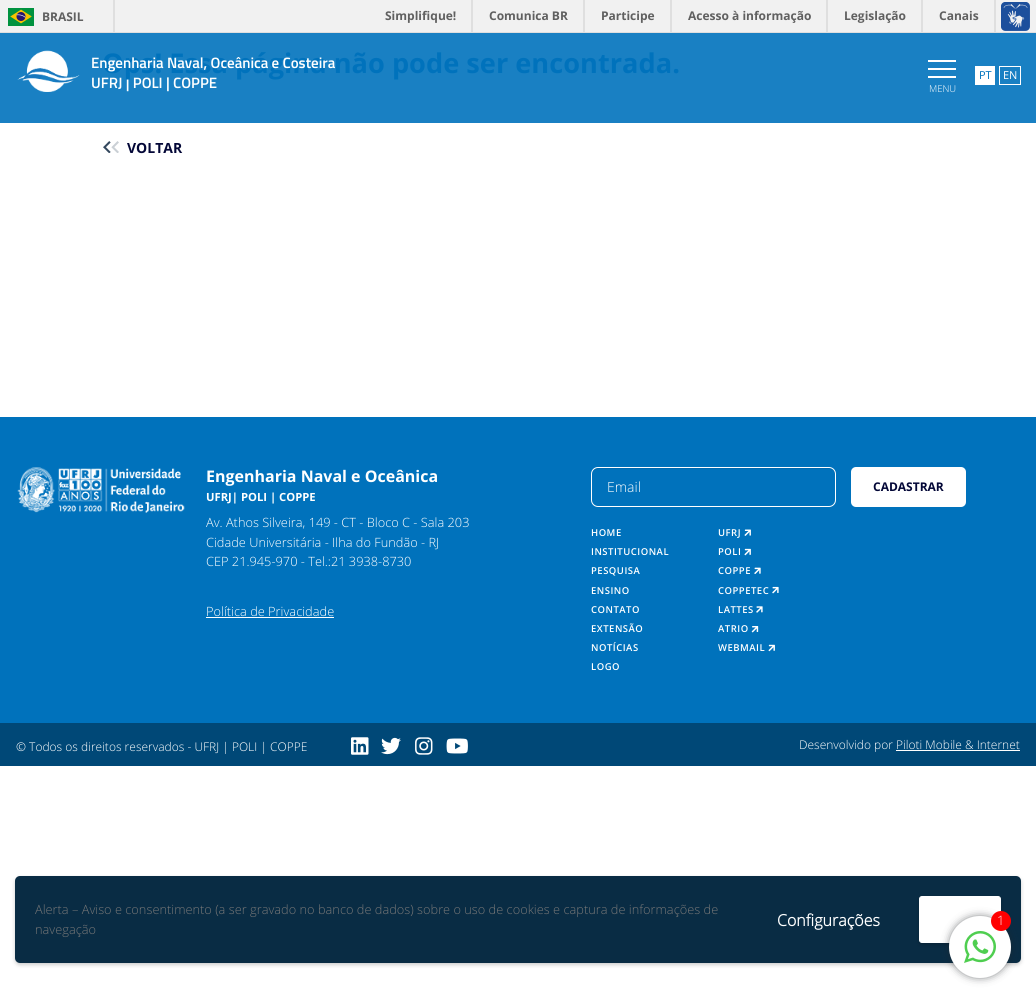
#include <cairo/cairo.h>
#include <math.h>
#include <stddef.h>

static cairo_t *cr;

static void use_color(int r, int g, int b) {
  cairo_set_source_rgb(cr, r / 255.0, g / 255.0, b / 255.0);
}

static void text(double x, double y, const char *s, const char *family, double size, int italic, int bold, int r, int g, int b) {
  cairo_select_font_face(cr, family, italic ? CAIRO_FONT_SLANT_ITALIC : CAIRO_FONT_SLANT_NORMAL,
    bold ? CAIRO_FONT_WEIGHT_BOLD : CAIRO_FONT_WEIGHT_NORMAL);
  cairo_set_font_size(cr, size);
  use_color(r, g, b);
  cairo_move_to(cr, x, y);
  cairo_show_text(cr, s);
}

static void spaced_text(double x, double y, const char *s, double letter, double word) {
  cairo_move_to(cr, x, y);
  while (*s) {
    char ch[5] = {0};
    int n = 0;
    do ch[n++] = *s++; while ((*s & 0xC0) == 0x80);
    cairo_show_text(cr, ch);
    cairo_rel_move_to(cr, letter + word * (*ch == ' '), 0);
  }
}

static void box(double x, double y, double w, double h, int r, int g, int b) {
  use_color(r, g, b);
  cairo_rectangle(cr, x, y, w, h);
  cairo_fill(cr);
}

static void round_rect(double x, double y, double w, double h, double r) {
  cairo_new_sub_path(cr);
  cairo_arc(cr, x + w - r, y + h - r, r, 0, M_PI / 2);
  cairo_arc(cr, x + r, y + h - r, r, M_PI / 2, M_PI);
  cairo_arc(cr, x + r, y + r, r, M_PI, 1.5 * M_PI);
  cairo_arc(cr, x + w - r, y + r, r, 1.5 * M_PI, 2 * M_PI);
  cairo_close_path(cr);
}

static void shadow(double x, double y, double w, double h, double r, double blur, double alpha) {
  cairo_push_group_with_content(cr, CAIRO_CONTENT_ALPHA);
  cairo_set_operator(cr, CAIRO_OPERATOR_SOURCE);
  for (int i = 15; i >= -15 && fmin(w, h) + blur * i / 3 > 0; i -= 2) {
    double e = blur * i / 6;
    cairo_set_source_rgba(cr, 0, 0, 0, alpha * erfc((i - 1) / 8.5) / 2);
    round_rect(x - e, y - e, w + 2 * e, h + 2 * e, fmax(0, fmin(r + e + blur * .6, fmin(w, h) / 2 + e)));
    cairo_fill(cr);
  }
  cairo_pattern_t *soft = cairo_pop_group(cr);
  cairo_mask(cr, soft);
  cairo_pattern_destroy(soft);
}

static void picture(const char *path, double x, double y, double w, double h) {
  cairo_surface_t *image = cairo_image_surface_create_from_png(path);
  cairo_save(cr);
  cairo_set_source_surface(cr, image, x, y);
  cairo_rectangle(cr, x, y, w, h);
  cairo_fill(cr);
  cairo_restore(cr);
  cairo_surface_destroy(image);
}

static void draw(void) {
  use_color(255, 255, 255);
  cairo_paint(cr);
  box(0, 33, 1036, 90, 25, 128, 195);
  box(0, 0, 1036, 32, 241, 241, 241);
  box(0, 32, 1036, 1, 223, 223, 223);
  box(113, 0, 2, 32, 223, 223, 223);
  picture("img_01.png", 8, 8, 26, 18);
  box(471, 0, 2, 32, 223, 223, 223);
  box(583, 0, 2, 32, 223, 223, 223);
  box(670, 0, 2, 32, 223, 223, 223);
  box(826, 0, 2, 32, 223, 223, 223);
  box(921, 0, 2, 32, 223, 223, 223);
  box(994, 0, 2, 32, 223, 223, 223);
  picture("img_02.png", 1001, 2, 29, 29);
  picture("img_03.png", 17, 50, 63, 42);
  picture("img_04.png", 103, 141, 16, 12);
  box(975, 66, 20, 19, 255, 255, 255);
  cairo_rectangle(cr, 999.5, 66.5, 21, 18);
  cairo_set_line_width(cr, 1);
  cairo_stroke(cr);
  box(928, 60, 28, 2, 255, 255, 255);
  box(928, 68, 28, 2, 255, 255, 255);
  box(928, 76, 28, 2, 255, 255, 255);
  box(0, 417, 1036, 306, 0, 114, 188);
  picture("img_05.png", 17, 467, 168, 46);
  box(206, 617, 128, 1, 255, 255, 255);
  use_color(0, 105, 174);
  cairo_new_path(cr);
  cairo_move_to(cr, 598, 469);
  cairo_line_to(cr, 829, 469);
  cairo_curve_to(cr, 832, 469, 835, 472, 835, 475);
  cairo_curve_to(cr, 835, 471, 833, 468, 829, 468);
  cairo_line_to(cr, 597, 468);
  cairo_curve_to(cr, 593, 469, 592, 472, 592, 475);
  cairo_curve_to(cr, 592, 472, 595, 469, 598, 469);
  cairo_close_path(cr);
  cairo_fill(cr);
  round_rect(591.5, 467.5, 244, 39, 6.5);
  use_color(255, 255, 255);
  cairo_stroke(cr);
  round_rect(851, 467, 115, 40, 5);
  cairo_fill(cr);
  picture("img_06.png", 744, 529, 7, 7);
  picture("img_07.png", 744, 548, 7, 8);
  picture("img_08.png", 754, 567, 7, 7);
  picture("img_09.png", 772, 586, 7, 8);
  picture("img_10.png", 756, 606, 7, 7);
  picture("img_11.png", 751, 626, 8, 7);
  picture("img_12.png", 768, 644, 7, 8);
  box(0, 723, 1036, 43, 0, 72, 119);
  picture("img_13.png", 351, 737, 18, 18);
  picture("img_14.png", 381, 737, 20, 18);
  picture("img_15.png", 415, 737, 18, 18);
  picture("img_16.png", 446, 738, 22, 16);
  box(896, 750, 124, 1, 255, 255, 255);
  use_color(0, 0, 0);
  shadow(15, 878, 1006, 87, 5, 2, 0.2);
  use_color(9, 44, 68);
  round_rect(15, 876, 1006, 87, 5);
  cairo_fill(cr);
  use_color(0, 0, 0);
  shadow(919, 898, 82, 47, 3, 2, 0.2);
  use_color(255, 255, 255);
  round_rect(919.5, 896.5, 81, 46, 2.5);
  cairo_fill_preserve(cr);
  cairo_stroke(cr);
  use_color(33, 37, 41);
  shadow(952, 919, 56, 56, 28, 5, 1);
  use_color(255, 255, 255);
  cairo_arc(cr, 980, 947, 31, 0, 2 * M_PI);
  cairo_fill(cr);
  use_color(255, 0, 0);
  cairo_arc(cr, 1001, 921, 10, 0, 2 * M_PI);
  cairo_fill(cr);
  picture("img_17.png", 964, 931, 32, 32);
  text(42, 21, "BRASIL", "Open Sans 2", 12, 0, 1, 96, 96, 96);
  text(385, 20, "Simplifique!", "Open Sans 2", 12, 0, 1, 96, 96, 96);
  text(489, 20, "Comunica BR", "Open Sans 2", 12, 0, 1, 96, 96, 96);
  text(601, 20, "Participe", "Open Sans 2", 12, 0, 1, 96, 96, 96);
  text(688, 20, "Acesso à informação", "Open Sans 2", 12, 0, 1, 96, 96, 96);
  text(844, 20, "Legislação", "Open Sans 2", 12, 0, 1, 96, 96, 96);
  text(939, 20, "Canais", "Open Sans 2", 12, 0, 1, 96, 96, 96);
  text(91, 88, "UFRJ | POLI | COPPE", "Titillium Web SemiBold", 15, 0, 0, 255, 255, 255);
  text(102, 73, "Ops! Essa página não pode ser encontrada.", "Open Sans", 27.2, 0, 1, 0, 114, 188);
  text(91, 68, "Engenharia Naval, Oceânica e Costeira", "Titillium Web SemiBold", 15, 0, 0, 255, 255, 255);
  text(127, 153, "VOLTAR", "Open Sans", 14, 0, 1, 3, 7, 55);
  text(979, 79, "PT", "Open Sans", 11, 0, 0, 0, 114, 188);
  text(1003, 79, "EN", "Open Sans", 11, 0, 0, 255, 255, 255);
  text(929, 92, "MENU", "Open Sans Light", 9.5, 0, 0, 255, 255, 255);
  text(206, 482, "Engenharia Naval e Oceânica", "Open Sans", 16, 0, 1, 255, 255, 255);
  text(206, 501, "UFRJ| POLI | COPPE", "Open Sans", 11.25, 0, 1, 255, 255, 255);
  text(206, 527, "Av. Athos Silveira, 149 - CT - Bloco C - Sala 203", "Open Sans Light", 12.8, 0, 0, 255, 255, 255);
  text(206, 547, "Cidade Universitária - Ilha do Fundão - RJ", "Open Sans Light", 12.8, 0, 0, 255, 255, 255);
  text(206, 566, "CEP 21.945-970 - Tel.:21 3938-8730", "Open Sans Light", 12.8, 0, 0, 255, 255, 255);
  text(206, 616, "Política de Privacidade", "Open Sans Light", 12.8, 0, 0, 255, 255, 255);
  text(607, 492, "Email", "Open Sans Light", 14, 0, 0, 255, 255, 255);
  text(873, 491, "CADASTRAR", "Open Sans", 12, 0, 1, 3, 7, 55);
  cairo_select_font_face(cr, "Open Sans SemiBold", CAIRO_FONT_SLANT_NORMAL, CAIRO_FONT_WEIGHT_NORMAL);
  cairo_set_font_size(cr, 9.5);
  use_color(255, 255, 255);
  spaced_text(591, 536, "HOME", 0.5, 0);
  spaced_text(591, 555, "INSTITUCIONAL", 0.5, 0);
  spaced_text(591, 574, "PESQUISA", 0.5, 0);
  spaced_text(591, 594, "ENSINO", 0.5, 0);
  spaced_text(591, 613, "CONTATO", 0.5, 0);
  spaced_text(591, 632, "EXTENSÃO", 0.5, 0);
  spaced_text(591, 651, "NOTÍCIAS", 0.5, 0);
  spaced_text(591, 670, "LOGO", 0.5, 0);
  spaced_text(718, 536, "UFRJ", 0.5, 0);
  spaced_text(718, 555, "POLI", 0.5, 0);
  spaced_text(718, 574, "COPPE", 0.5, 0);
  spaced_text(718, 594, "COPPETEC", 0.5, 0);
  spaced_text(718, 613, "LATTES", 0.5, 0);
  spaced_text(718, 632, "ATRIO", 0.5, 0);
  spaced_text(718, 651, "WEBMAIL", 0.5, 0);
  text(16, 751, "© Todos os direitos reservados - UFRJ | POLI | COPPE", "Open Sans Light", 12, 0, 0, 255, 255, 255);
  text(799, 749, "Desenvolvido por Piloti Mobile & Internet", "Open Sans Light", 12, 0, 0, 255, 255, 255);
  text(35, 914, "Alerta – Aviso e consentimento (a ser gravado no banco de dados) sobre o uso de cookies e captura de informações de", "Open Sans Light", 12.8, 0, 0, 119, 119, 119);
  text(35, 934, "navegação", "Open Sans Light", 12.8, 0, 0, 119, 119, 119);
  text(777, 926, "Configurações", "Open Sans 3", 16, 0, 1, 255, 255, 255);
  text(997, 925, "1", "Open Sans Light", 13, 0, 0, 255, 255, 255);
}

int main(void) {
  cairo_surface_t *surface = cairo_image_surface_create(CAIRO_FORMAT_RGB24, 1036, 998);
  cr = cairo_create(surface);
  cairo_font_options_t *options = cairo_font_options_create();
  cairo_font_options_set_hint_metrics(options, CAIRO_HINT_METRICS_OFF);
  cairo_font_options_set_hint_style(options, CAIRO_HINT_STYLE_NONE);
  cairo_set_font_options(cr, options);
  cairo_set_miter_limit(cr, 4);
  draw();
  cairo_surface_write_to_png(surface, "out.png");
  cairo_font_options_destroy(options);
  cairo_destroy(cr);
  cairo_surface_destroy(surface);
  return 0;
}
